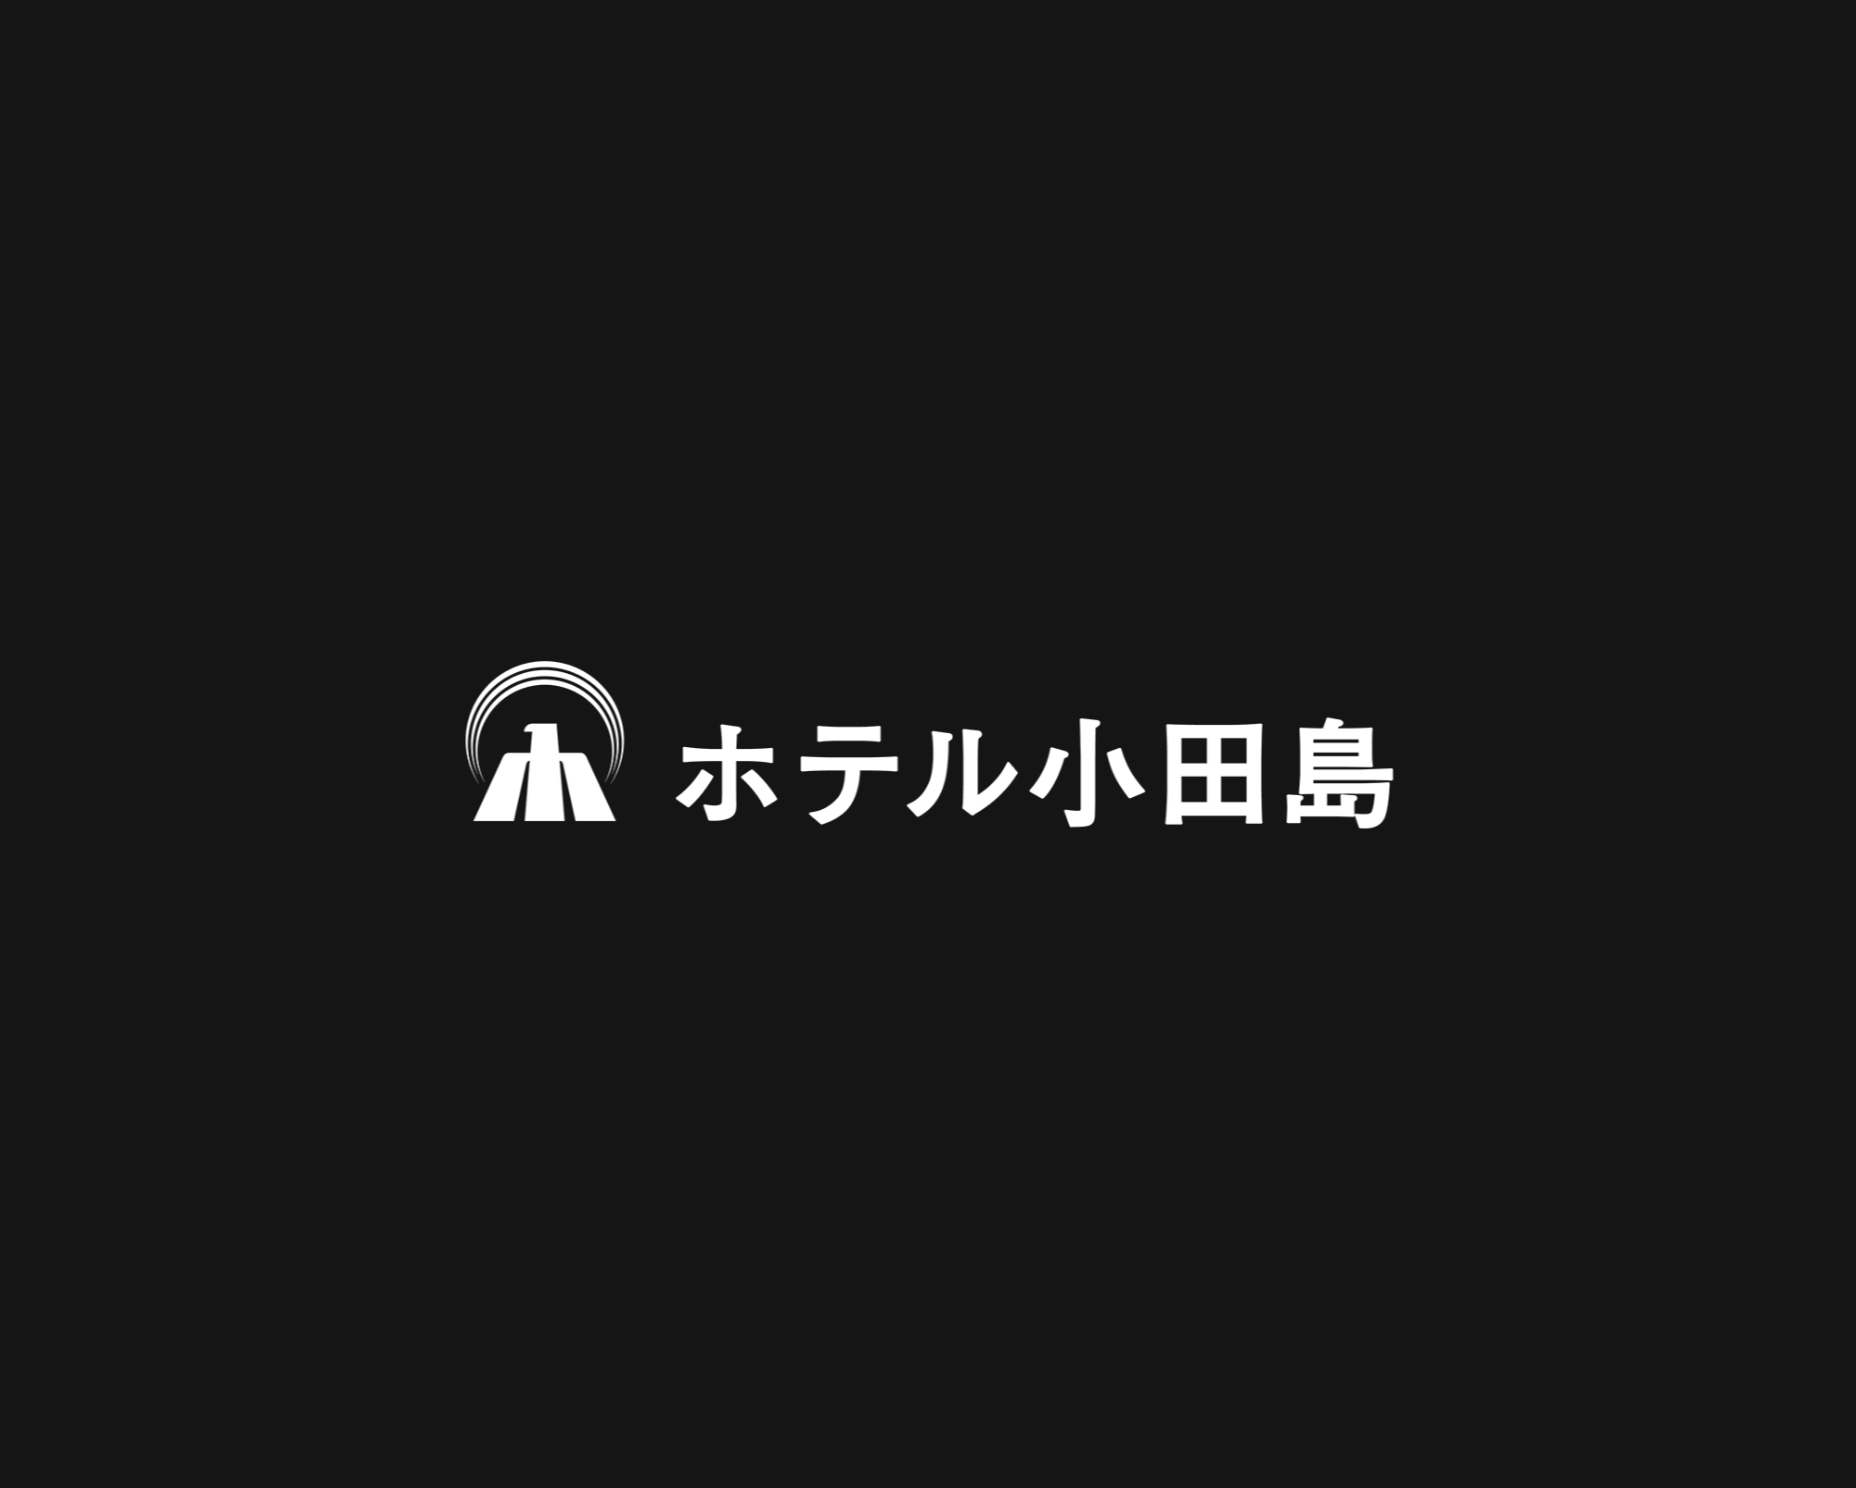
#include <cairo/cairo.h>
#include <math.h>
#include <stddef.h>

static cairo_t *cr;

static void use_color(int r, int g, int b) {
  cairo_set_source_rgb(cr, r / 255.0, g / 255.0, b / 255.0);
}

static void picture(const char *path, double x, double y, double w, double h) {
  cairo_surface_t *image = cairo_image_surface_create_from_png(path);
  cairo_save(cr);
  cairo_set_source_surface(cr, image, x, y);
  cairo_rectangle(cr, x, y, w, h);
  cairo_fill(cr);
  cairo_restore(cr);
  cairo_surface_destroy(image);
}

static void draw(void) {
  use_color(21, 21, 21);
  cairo_paint(cr);
  picture("img_01.png", 465, 660, 929, 169);
}

int main(void) {
  cairo_surface_t *surface = cairo_image_surface_create(CAIRO_FORMAT_RGB24, 1856, 1488);
  cr = cairo_create(surface);
  cairo_font_options_t *options = cairo_font_options_create();
  cairo_font_options_set_hint_metrics(options, CAIRO_HINT_METRICS_OFF);
  cairo_font_options_set_hint_style(options, CAIRO_HINT_STYLE_NONE);
  cairo_set_font_options(cr, options);
  cairo_set_miter_limit(cr, 4);
  draw();
  cairo_surface_write_to_png(surface, "out.png");
  cairo_font_options_destroy(options);
  cairo_destroy(cr);
  cairo_surface_destroy(surface);
  return 0;
}
